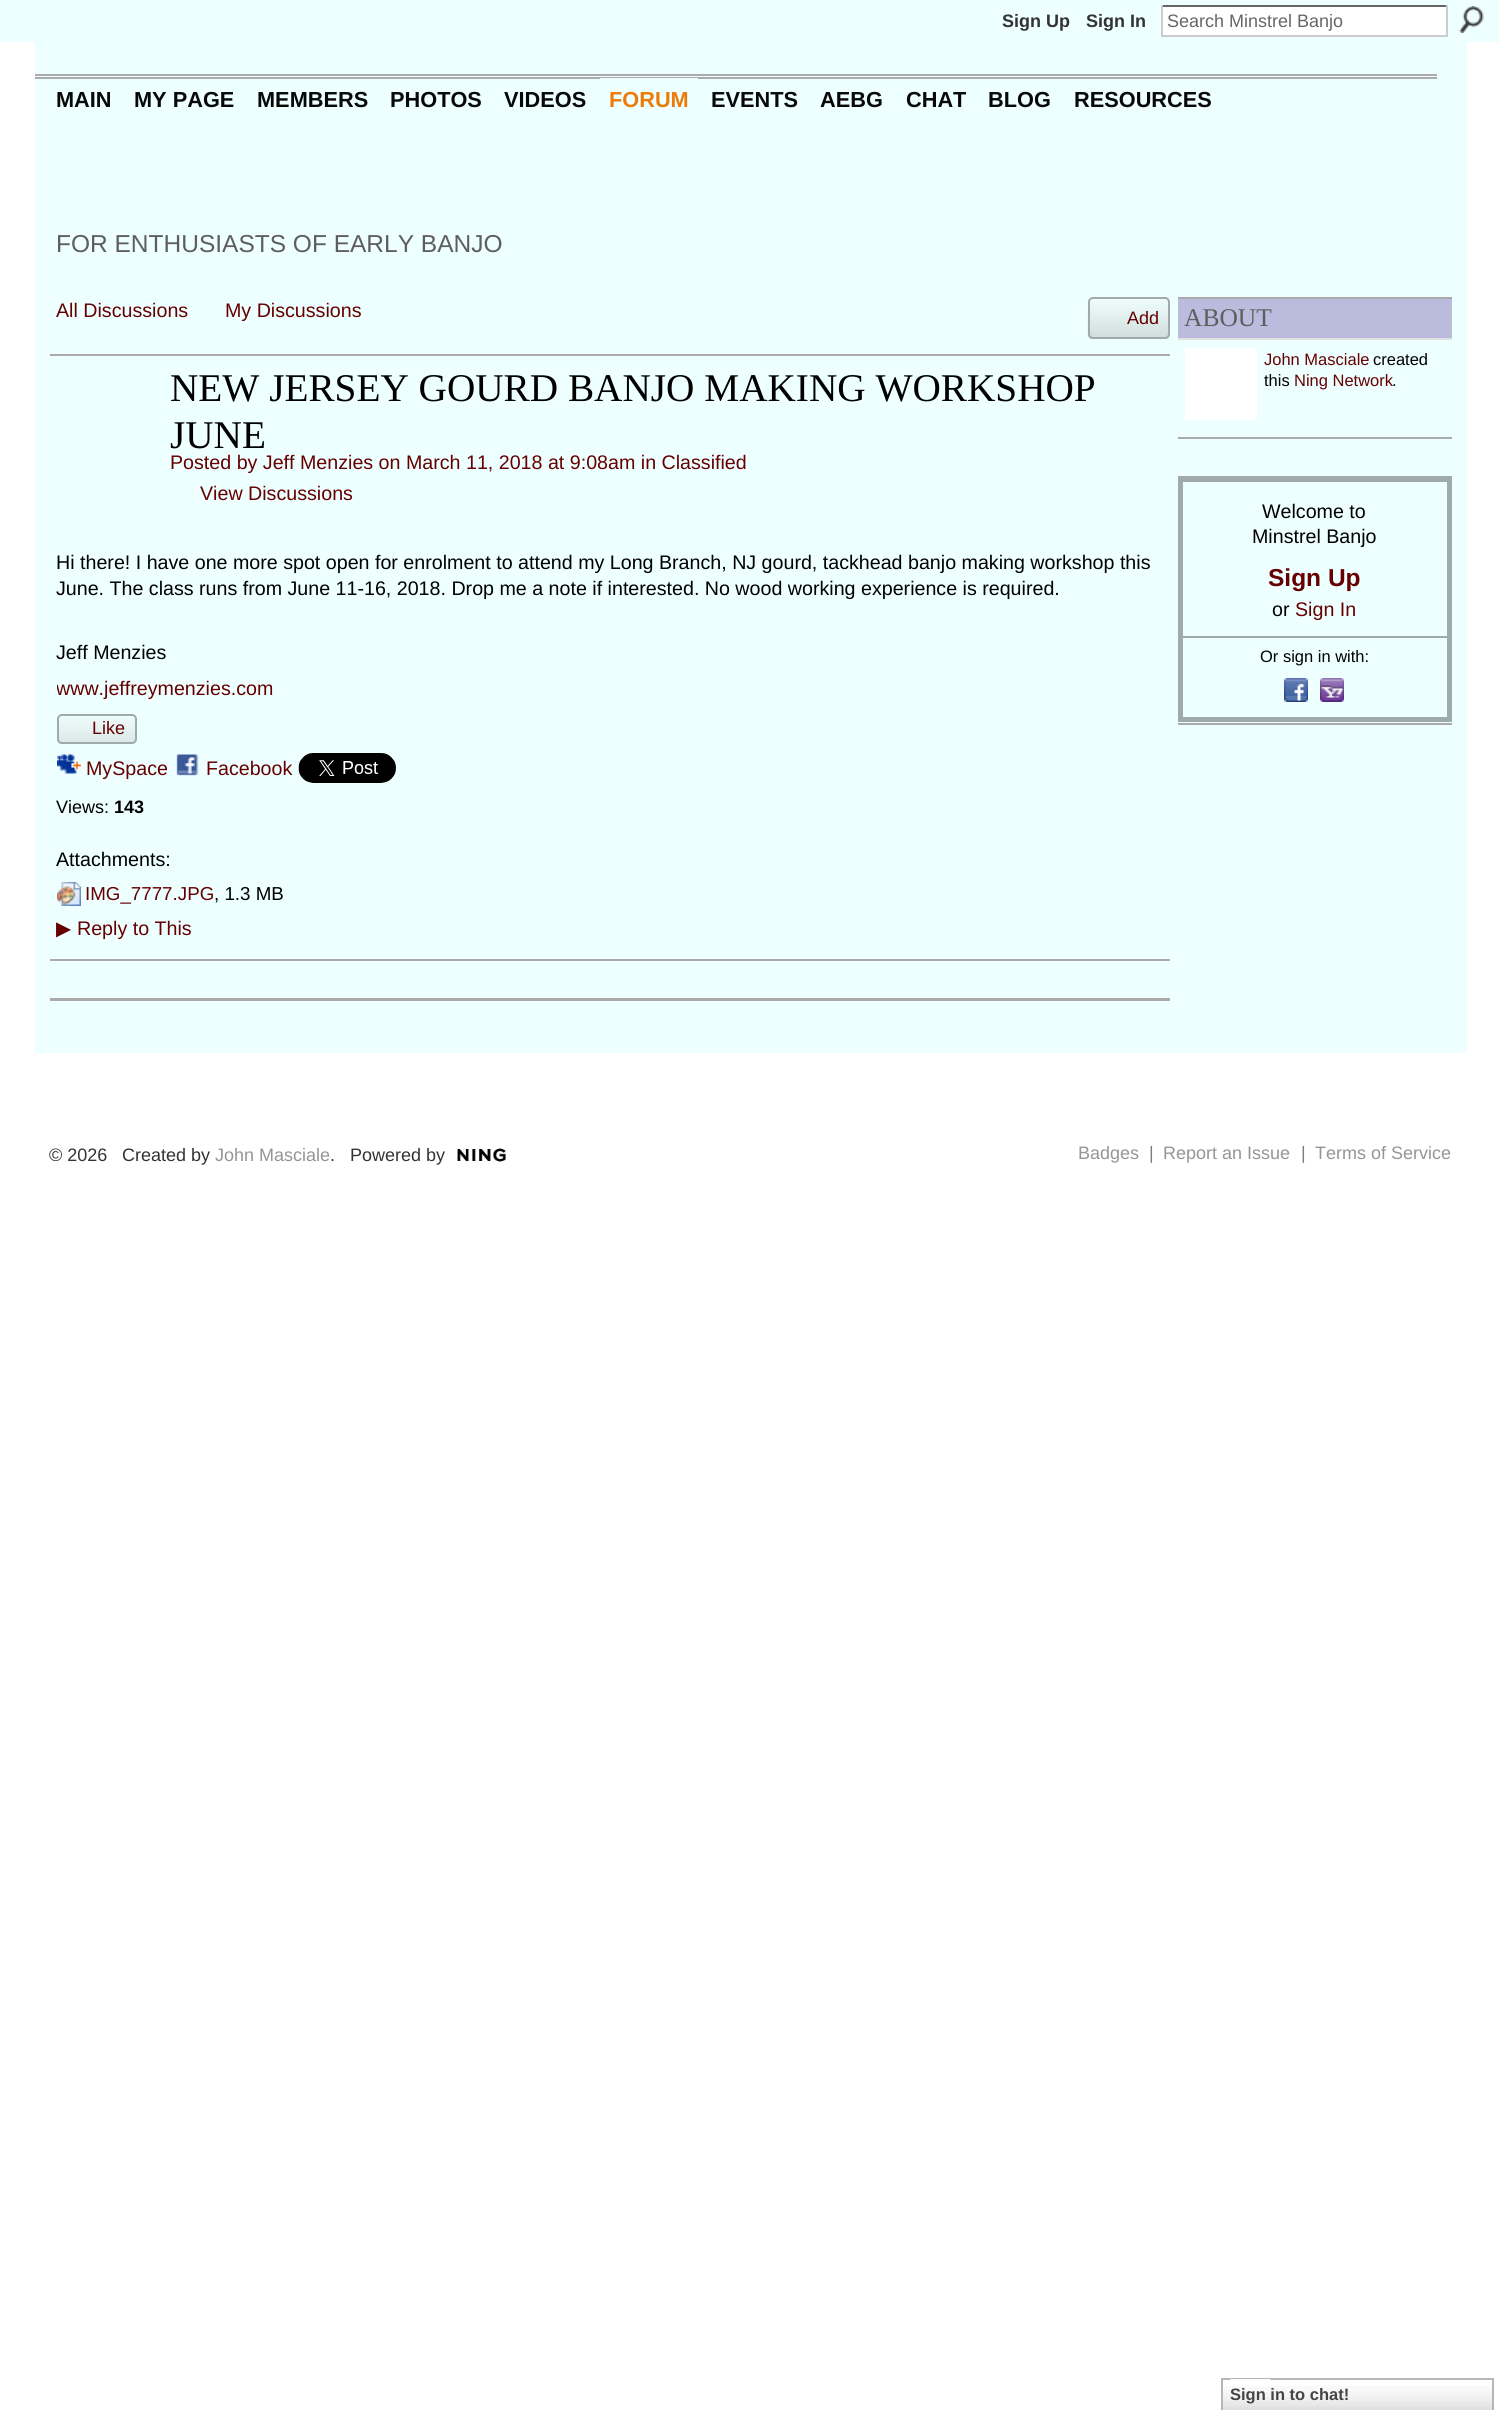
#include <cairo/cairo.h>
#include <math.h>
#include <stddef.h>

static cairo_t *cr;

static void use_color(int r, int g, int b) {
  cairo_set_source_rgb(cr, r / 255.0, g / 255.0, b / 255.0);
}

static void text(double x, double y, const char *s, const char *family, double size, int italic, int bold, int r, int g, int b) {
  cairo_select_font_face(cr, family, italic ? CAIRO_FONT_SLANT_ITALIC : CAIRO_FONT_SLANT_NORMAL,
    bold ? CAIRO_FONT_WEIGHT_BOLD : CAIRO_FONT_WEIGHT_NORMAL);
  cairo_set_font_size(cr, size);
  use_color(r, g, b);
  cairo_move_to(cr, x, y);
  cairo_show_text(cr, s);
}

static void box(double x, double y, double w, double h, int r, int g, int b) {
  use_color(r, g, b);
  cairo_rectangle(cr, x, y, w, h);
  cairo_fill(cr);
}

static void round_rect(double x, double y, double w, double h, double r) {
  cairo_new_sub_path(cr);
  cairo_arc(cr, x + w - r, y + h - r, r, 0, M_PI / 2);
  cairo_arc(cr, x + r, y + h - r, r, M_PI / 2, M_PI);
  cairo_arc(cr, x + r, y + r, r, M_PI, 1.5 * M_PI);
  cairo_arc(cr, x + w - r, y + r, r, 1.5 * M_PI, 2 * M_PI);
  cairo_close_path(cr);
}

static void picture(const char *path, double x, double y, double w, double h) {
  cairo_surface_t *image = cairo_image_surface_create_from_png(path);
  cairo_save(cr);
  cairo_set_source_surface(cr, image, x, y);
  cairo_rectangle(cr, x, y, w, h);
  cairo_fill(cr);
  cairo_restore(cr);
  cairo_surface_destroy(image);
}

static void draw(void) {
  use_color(255, 255, 255);
  cairo_paint(cr);
  box(0, 0, 1499, 42, 238, 255, 255);
  box(1163, 7, 283, 28, 255, 255, 255);
  box(1161, 5, 287, 2, 102, 102, 102);
  box(1446, 5, 2, 31, 204, 204, 204);
  box(1161, 35, 287, 2, 204, 204, 204);
  box(1161, 5, 2, 31, 204, 204, 204);
  picture("img_01.png", 1459, 6, 25, 27);
  box(35, 42, 1432, 1011, 238, 255, 255);
  box(35, 74, 1402, 2, 170, 170, 170);
  box(35, 77, 1402, 2, 170, 170, 170);
  box(600, 78, 98, 1, 238, 255, 255);
  picture("img_02.png", 1087, 300, 83, 39);
  round_rect(1089, 298, 80, 40, 4);
  use_color(159, 170, 170);
  cairo_stroke(cr);
  box(50, 354, 1120, 2, 170, 170, 170);
  box(50, 959, 1120, 2, 170, 170, 170);
  picture("img_03.png", 57, 717, 80, 27);
  round_rect(58, 715, 78, 28, 4);
  use_color(159, 170, 170);
  cairo_stroke(cr);
  picture("img_04.png", 57, 754, 26, 20);
  picture("img_05.png", 176, 754, 23, 22);
  picture("img_06.png", 298, 753, 98, 30);
  picture("img_07.png", 57, 882, 24, 24);
  box(50, 998, 1120, 3, 170, 170, 170);
  box(1178, 297, 274, 2, 170, 170, 170);
  box(1178, 437, 274, 2, 170, 170, 170);
  box(1178, 299, 274, 39, 187, 187, 221);
  box(1178, 338, 274, 2, 225, 225, 225);
  box(1185, 348, 72, 72, 255, 255, 255);
  box(1178, 476, 274, 1, 170, 170, 170);
  box(1178, 723, 274, 2, 170, 170, 170);
  cairo_rectangle(cr, 1180.5, 479.5, 269, 240);
  use_color(159, 170, 170);
  cairo_set_line_width(cr, 5);
  cairo_stroke(cr);
  box(1182, 636, 266, 2, 159, 170, 170);
  picture("img_08.png", 1284, 678, 24, 24);
  picture("img_09.png", 1320, 678, 24, 24);
  picture("img_10.png", 457, 1148, 49, 14);
  picture("img_11.png", 1223, 2386, 269, 24);
  cairo_rectangle(cr, 1222, 2379, 271, 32);
  use_color(183, 183, 183);
  cairo_set_line_width(cr, 2);
  cairo_stroke(cr);
  picture("img_12.png", 1230, 2379, 41, 1);
  text(1002, 27, "Sign Up", "Liberation Sans", 18, 0, 1, 51, 51, 51);
  text(1086, 27, "Sign In", "Liberation Sans", 18, 0, 1, 51, 51, 51);
  text(1167, 27, "Search Minstrel Banjo", "Liberation Sans", 18, 0, 0, 102, 102, 102);
  text(56, 107, "MAIN", "Liberation Sans", 21.75, 0, 1, 8, 8, 8);
  text(134, 107, "MY PAGE", "Liberation Sans", 21.75, 0, 1, 8, 8, 8);
  text(257, 107, "MEMBERS", "Liberation Sans", 21.75, 0, 1, 8, 8, 8);
  text(390, 107, "PHOTOS", "Liberation Sans", 21.75, 0, 1, 8, 8, 8);
  text(504, 107, "VIDEOS", "Liberation Sans", 21.75, 0, 1, 8, 8, 8);
  text(609, 107, "FORUM", "Liberation Sans", 21.75, 0, 1, 237, 123, 9);
  text(711, 107, "EVENTS", "Liberation Sans", 21.75, 0, 1, 8, 8, 8);
  text(820, 107, "AEBG", "Liberation Sans", 21.75, 0, 1, 8, 8, 8);
  text(906, 107, "CHAT", "Liberation Sans", 21.75, 0, 1, 8, 8, 8);
  text(988, 107, "BLOG", "Liberation Sans", 21.75, 0, 1, 8, 8, 8);
  text(1074, 107, "RESOURCES", "Liberation Sans", 21.75, 0, 1, 8, 8, 8);
  text(56, 252, "FOR ENTHUSIASTS OF EARLY BANJO", "Liberation Sans", 24.5, 0, 0, 94, 94, 94);
  text(56, 317, "All Discussions", "Liberation Sans", 19.65, 0, 0, 102, 0, 0);
  text(225, 317, "My Discussions", "Liberation Sans", 19.65, 0, 0, 102, 0, 0);
  text(1127, 324, "Add", "Liberation Sans", 18, 0, 0, 102, 0, 0);
  text(170, 401, "NEW JERSEY GOURD BANJO MAKING WORKSHOP", "Liberation Serif", 39.25, 0, 0, 0, 0, 0);
  text(170, 448, "JUNE", "Liberation Serif", 39.25, 0, 0, 0, 0, 0);
  text(170, 469, "Posted by Jeff Menzies on March 11, 2018 at 9:08am in Classified", "Liberation Sans", 19.65, 0, 0, 102, 0, 0);
  text(200, 500, "View Discussions", "Liberation Sans", 19.65, 0, 0, 102, 0, 0);
  text(56, 569, "Hi there! I have one more spot open for enrolment to attend my Long Branch, NJ gourd, tackhead banjo making workshop this", "Liberation Sans", 19.65, 0, 0, 0, 0, 0);
  text(56, 595, "June. The class runs from June 11-16, 2018. Drop me a note if interested. No wood working experience is required.", "Liberation Sans", 19.65, 0, 0, 0, 0, 0);
  text(56, 659, "Jeff Menzies", "Liberation Sans", 19.65, 0, 0, 0, 0, 0);
  cairo_save(cr);
  cairo_rectangle(cr, 57, 549, 1106, 152);
  cairo_clip(cr);
  text(56, 695, "www.jeffreymenzies.com", "Liberation Sans", 19.65, 0, 0, 102, 0, 0);
  cairo_restore(cr);
  text(92, 734, "Like", "Liberation Sans", 18, 0, 0, 102, 0, 0);
  text(86, 775, "MySpace", "Liberation Sans", 19.65, 0, 0, 102, 0, 0);
  text(206, 775, "Facebook", "Liberation Sans", 19.65, 0, 0, 102, 0, 0);
  text(56, 813, "Views:", "Liberation Sans", 18, 0, 0, 0, 0, 0);
  text(114, 813, "143", "Liberation Sans", 18, 0, 1, 0, 0, 0);
  text(56, 866, "Attachments:", "Liberation Sans", 19.65, 0, 0, 0, 0, 0);
  text(85, 900, "IMG_7777.JPG", "Liberation Sans", 18.75, 0, 0, 102, 0, 0);
  text(214, 900, ", 1.3 MB", "Liberation Sans", 18.75, 0, 0, 0, 0, 0);
  text(56, 935, "▶", "DejaVu Sans", 19.65, 0, 0, 102, 0, 0);
  text(77, 935, "Reply to This", "Liberation Sans", 19.65, 0, 0, 102, 0, 0);
  text(1184, 326, "ABOUT", "Liberation Serif", 25.5, 0, 0, 94, 94, 94);
  text(1264, 365, "John Masciale", "Liberation Sans", 16.5, 0, 0, 102, 0, 0);
  text(1373, 365, "created", "Liberation Sans", 16.5, 0, 0, 0, 0, 0);
  text(1264, 386, "this", "Liberation Sans", 16.5, 0, 0, 0, 0, 0);
  text(1294, 386, "Ning Network", "Liberation Sans", 16.5, 0, 0, 102, 0, 0);
  text(1392, 386, ".", "Liberation Sans", 16.5, 0, 0, 0, 0, 0);
  text(1262, 518, "Welcome to", "Liberation Sans", 19.65, 0, 0, 0, 0, 0);
  text(1252, 543, "Minstrel Banjo", "Liberation Sans", 19.65, 0, 0, 0, 0, 0);
  text(1268, 586, "Sign Up", "Liberation Sans", 24.5, 0, 1, 102, 0, 0);
  text(1272, 616, "or", "Liberation Sans", 19.65, 0, 0, 0, 0, 0);
  text(1295, 616, "Sign In", "Liberation Sans", 19.65, 0, 0, 102, 0, 0);
  text(1260, 662, "Or sign in with:", "Liberation Sans", 16.5, 0, 0, 0, 0, 0);
  text(49, 1161, "© 2026", "Liberation Sans", 18, 0, 0, 51, 51, 51);
  text(122, 1161, "Created by", "Liberation Sans", 18, 0, 0, 51, 51, 51);
  text(215, 1161, "John Masciale", "Liberation Sans", 18, 0, 0, 149, 149, 149);
  text(330, 1161, ".", "Liberation Sans", 18, 0, 0, 51, 51, 51);
  text(350, 1161, "Powered by", "Liberation Sans", 18, 0, 0, 51, 51, 51);
  text(1078, 1159, "Badges", "Liberation Sans", 18, 0, 0, 149, 149, 149);
  text(1149, 1159, "|", "Liberation Sans", 18, 0, 0, 119, 128, 128);
  text(1163, 1159, "Report an Issue", "Liberation Sans", 18, 0, 0, 149, 149, 149);
  text(1301, 1159, "|", "Liberation Sans", 18, 0, 0, 119, 128, 128);
  text(1315, 1159, "Terms of Service", "Liberation Sans", 18, 0, 0, 149, 149, 149);
  text(1230, 2400, "Sign in to chat!", "Liberation Sans", 16.5, 0, 1, 69, 69, 69);
}

int main(void) {
  cairo_surface_t *surface = cairo_image_surface_create(CAIRO_FORMAT_RGB24, 1499, 2410);
  cr = cairo_create(surface);
  cairo_font_options_t *options = cairo_font_options_create();
  cairo_font_options_set_hint_metrics(options, CAIRO_HINT_METRICS_OFF);
  cairo_font_options_set_hint_style(options, CAIRO_HINT_STYLE_NONE);
  cairo_set_font_options(cr, options);
  cairo_set_miter_limit(cr, 4);
  draw();
  cairo_surface_write_to_png(surface, "out.png");
  cairo_font_options_destroy(options);
  cairo_destroy(cr);
  cairo_surface_destroy(surface);
  return 0;
}
